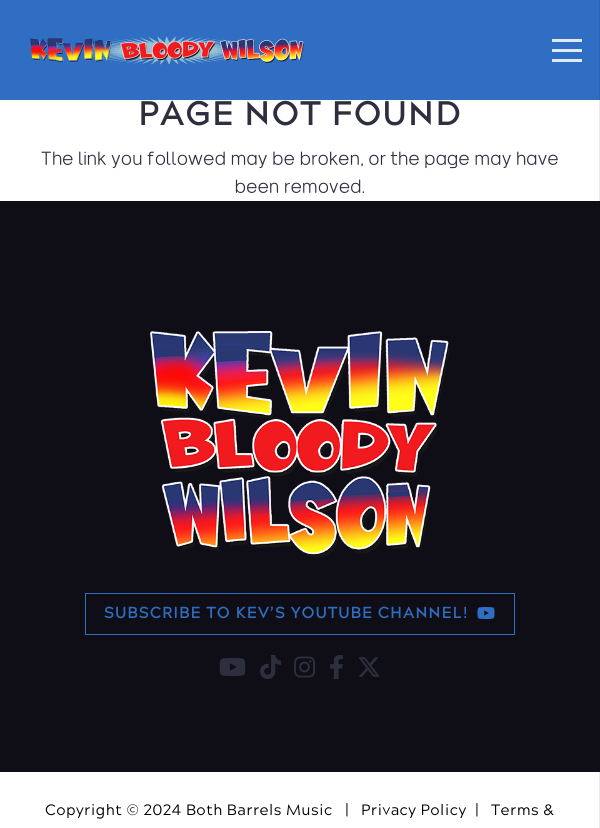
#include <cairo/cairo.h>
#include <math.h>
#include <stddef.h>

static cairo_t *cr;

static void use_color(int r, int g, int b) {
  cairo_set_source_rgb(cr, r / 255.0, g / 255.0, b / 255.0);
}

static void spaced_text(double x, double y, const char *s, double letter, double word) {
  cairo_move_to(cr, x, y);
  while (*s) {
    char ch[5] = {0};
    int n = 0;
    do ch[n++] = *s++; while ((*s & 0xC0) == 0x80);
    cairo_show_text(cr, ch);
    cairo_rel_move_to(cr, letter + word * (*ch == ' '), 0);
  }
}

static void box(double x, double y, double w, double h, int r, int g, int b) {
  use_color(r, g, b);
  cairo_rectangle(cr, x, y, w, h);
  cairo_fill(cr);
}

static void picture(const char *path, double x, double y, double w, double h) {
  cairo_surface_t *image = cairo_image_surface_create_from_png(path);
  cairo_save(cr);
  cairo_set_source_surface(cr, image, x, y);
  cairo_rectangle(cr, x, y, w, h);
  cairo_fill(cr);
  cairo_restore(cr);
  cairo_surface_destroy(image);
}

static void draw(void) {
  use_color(255, 255, 255);
  cairo_paint(cr);
  box(599, 100, 1, 101, 235, 235, 235);
  box(0, 0, 599, 100, 47, 110, 194);
  box(599, 0, 1, 100, 43, 101, 178);
  picture("img_01.png", 30, 36, 274, 29);
  box(552, 49, 30, 3, 224, 233, 246);
  box(552, 39, 30, 3, 224, 233, 246);
  box(552, 59, 30, 3, 224, 233, 246);
  box(599, 772, 1, 56, 235, 235, 235);
  box(0, 201, 599, 571, 15, 14, 23);
  box(599, 201, 1, 571, 14, 13, 21);
  picture("img_02.png", 150, 331, 300, 227);
  picture("img_03.png", 477, 607, 18, 12);
  cairo_rectangle(cr, 85.5, 593.5, 429, 41);
  use_color(47, 110, 194);
  cairo_set_line_width(cr, 1);
  cairo_stroke(cr);
  picture("img_04.png", 219, 658, 27, 18);
  picture("img_05.png", 260, 655, 21, 24);
  picture("img_06.png", 294, 656, 21, 22);
  picture("img_07.png", 330, 655, 13, 24);
  picture("img_08.png", 358, 657, 22, 20);
  cairo_select_font_face(cr, "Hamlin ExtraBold", CAIRO_FONT_SLANT_NORMAL, CAIRO_FONT_WEIGHT_NORMAL);
  cairo_set_font_size(cr, 34);
  use_color(46, 47, 62);
  spaced_text(138, 125, "PAGE NOT FOUND", 1, 0);
  cairo_select_font_face(cr, "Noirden", CAIRO_FONT_SLANT_NORMAL, CAIRO_FONT_WEIGHT_NORMAL);
  cairo_set_font_size(cr, 18);
  spaced_text(41, 163, "The link you followed may be broken, or the page may have", 0.9, 0);
  spaced_text(235, 191, "been removed.", 0.9, 0);
  cairo_select_font_face(cr, "Hamlin ExtraBold", CAIRO_FONT_SLANT_NORMAL, CAIRO_FONT_WEIGHT_NORMAL);
  cairo_set_font_size(cr, 16);
  use_color(47, 110, 194);
  spaced_text(104, 618, "SUBSCRIBE TO KEV’S YOUTUBE CHANNEL!", 0.8, 0);
  cairo_select_font_face(cr, "Hamlin", CAIRO_FONT_SLANT_NORMAL, CAIRO_FONT_WEIGHT_NORMAL);
  cairo_set_font_size(cr, 15);
  use_color(0, 0, 0);
  spaced_text(45, 815, "Copyright © 2024 Both Barrels Music", 0.45, 0);
  spaced_text(345, 815, "|", 0.45, 0);
  spaced_text(361, 815, "Privacy Policy", 0.45, 0);
  spaced_text(475, 815, "|", 0.45, 0);
  spaced_text(491, 815, "Terms &", 0.45, 0);
}

int main(void) {
  cairo_surface_t *surface = cairo_image_surface_create(CAIRO_FORMAT_RGB24, 600, 828);
  cr = cairo_create(surface);
  cairo_font_options_t *options = cairo_font_options_create();
  cairo_font_options_set_hint_metrics(options, CAIRO_HINT_METRICS_OFF);
  cairo_font_options_set_hint_style(options, CAIRO_HINT_STYLE_NONE);
  cairo_set_font_options(cr, options);
  cairo_set_miter_limit(cr, 4);
  draw();
  cairo_surface_write_to_png(surface, "out.png");
  cairo_font_options_destroy(options);
  cairo_destroy(cr);
  cairo_surface_destroy(surface);
  return 0;
}
